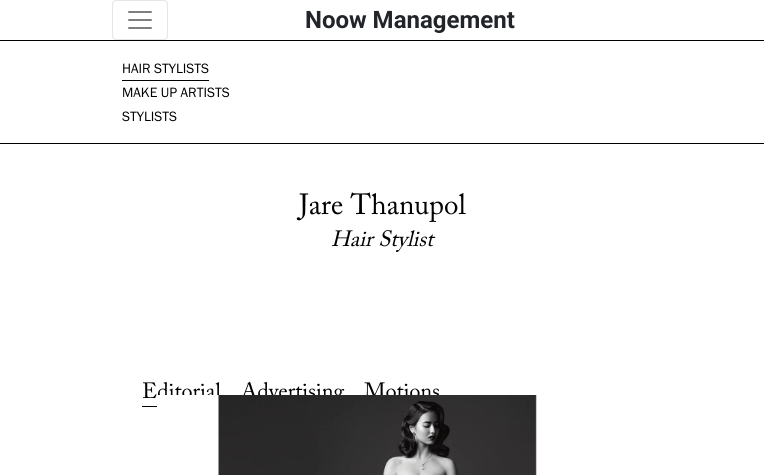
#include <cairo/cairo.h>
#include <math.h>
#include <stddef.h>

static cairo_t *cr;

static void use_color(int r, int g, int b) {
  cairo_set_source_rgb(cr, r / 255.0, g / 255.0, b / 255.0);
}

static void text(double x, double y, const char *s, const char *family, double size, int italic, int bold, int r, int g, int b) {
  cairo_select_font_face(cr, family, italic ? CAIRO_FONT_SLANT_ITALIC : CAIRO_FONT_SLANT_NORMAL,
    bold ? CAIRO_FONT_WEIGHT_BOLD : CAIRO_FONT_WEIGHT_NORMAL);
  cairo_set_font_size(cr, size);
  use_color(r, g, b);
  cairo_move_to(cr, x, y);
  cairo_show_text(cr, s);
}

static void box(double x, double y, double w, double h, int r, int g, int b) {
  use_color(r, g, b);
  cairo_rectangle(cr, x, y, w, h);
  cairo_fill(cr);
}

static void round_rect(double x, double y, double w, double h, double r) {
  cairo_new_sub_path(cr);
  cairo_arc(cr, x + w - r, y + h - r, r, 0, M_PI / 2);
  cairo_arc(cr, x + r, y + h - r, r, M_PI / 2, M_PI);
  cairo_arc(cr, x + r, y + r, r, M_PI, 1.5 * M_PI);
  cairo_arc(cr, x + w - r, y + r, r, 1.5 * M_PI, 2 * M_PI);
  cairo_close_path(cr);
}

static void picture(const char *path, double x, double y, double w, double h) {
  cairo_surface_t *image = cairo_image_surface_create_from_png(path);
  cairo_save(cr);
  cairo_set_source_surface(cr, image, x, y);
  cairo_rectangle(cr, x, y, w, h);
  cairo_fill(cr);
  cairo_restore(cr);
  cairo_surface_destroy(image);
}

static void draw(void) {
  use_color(255, 255, 255);
  cairo_paint(cr);
  box(0, 40, 764, 1, 0, 0, 0);
  round_rect(112.5, 0.5, 55, 39, 3.5);
  use_color(230, 230, 230);
  cairo_set_line_width(cr, 1);
  cairo_stroke(cr);
  picture("img_01.png", 128, 11, 24, 18);
  box(0, 143, 764, 1, 0, 0, 0);
  box(122, 80, 87, 1, 0, 0, 0);
  picture("img_02.png", 296, 192, 170, 30);
  picture("img_03.png", 331, 230, 105, 22);
  box(142, 406, 15, 1, 0, 0, 0);
  picture("img_04.png", 143, 382, 77, 17);
  picture("img_05.png", 243, 381, 102, 14);
  picture("img_06.png", 364, 382, 75, 13);
  picture("img_07.png", 157, 395, 380, 80);
  text(305, 28, "Noow Management", "Roboto", 24, 0, 1, 33, 37, 41);
  text(122, 73, "HAIR STYLISTS", "Franklin Gothic", 14, 0, 0, 0, 0, 0);
  text(122, 97, "MAKE UP ARTISTS", "Franklin Gothic", 14, 0, 0, 0, 0, 0);
  text(122, 121, "STYLISTS", "Franklin Gothic", 14, 0, 0, 0, 0, 0);
}

int main(void) {
  cairo_surface_t *surface = cairo_image_surface_create(CAIRO_FORMAT_RGB24, 764, 475);
  cr = cairo_create(surface);
  cairo_font_options_t *options = cairo_font_options_create();
  cairo_font_options_set_hint_metrics(options, CAIRO_HINT_METRICS_OFF);
  cairo_font_options_set_hint_style(options, CAIRO_HINT_STYLE_NONE);
  cairo_set_font_options(cr, options);
  cairo_set_miter_limit(cr, 4);
  draw();
  cairo_surface_write_to_png(surface, "out.png");
  cairo_font_options_destroy(options);
  cairo_destroy(cr);
  cairo_surface_destroy(surface);
  return 0;
}
